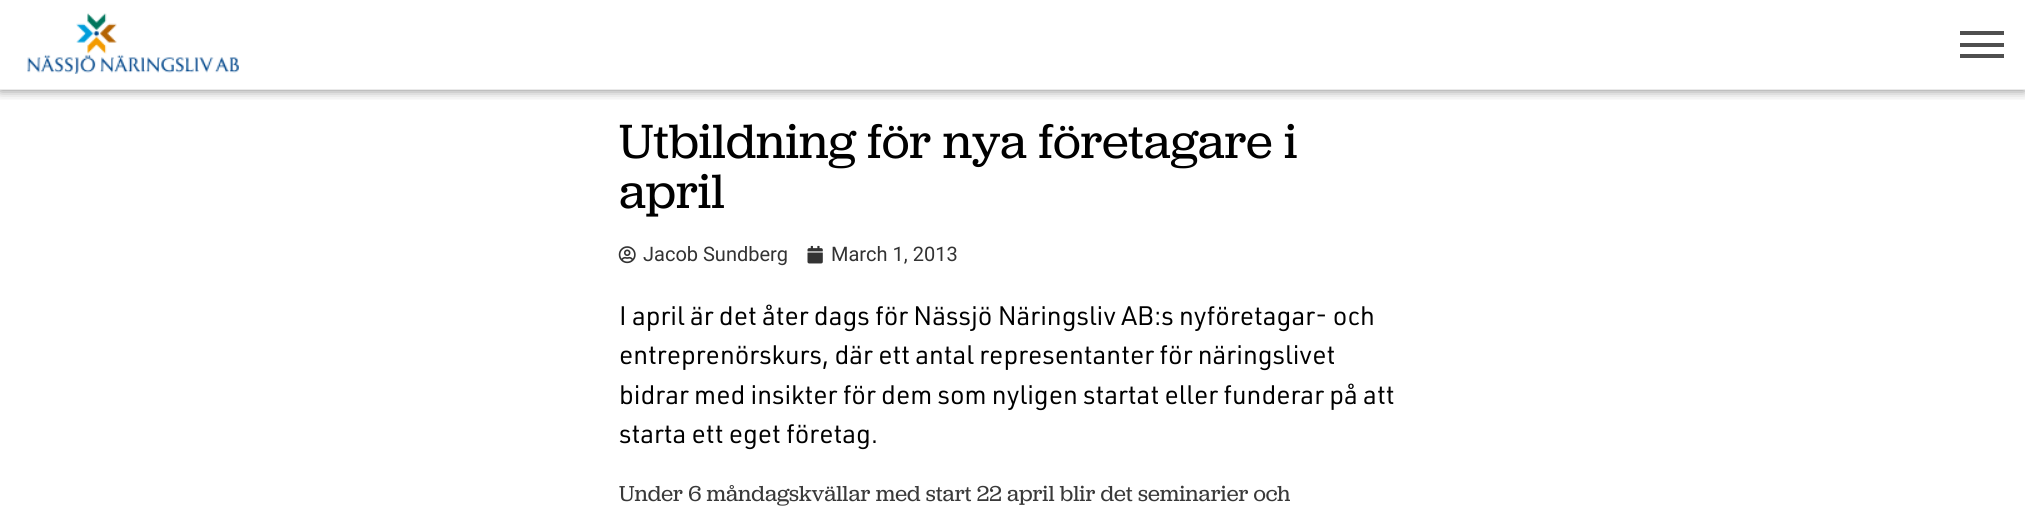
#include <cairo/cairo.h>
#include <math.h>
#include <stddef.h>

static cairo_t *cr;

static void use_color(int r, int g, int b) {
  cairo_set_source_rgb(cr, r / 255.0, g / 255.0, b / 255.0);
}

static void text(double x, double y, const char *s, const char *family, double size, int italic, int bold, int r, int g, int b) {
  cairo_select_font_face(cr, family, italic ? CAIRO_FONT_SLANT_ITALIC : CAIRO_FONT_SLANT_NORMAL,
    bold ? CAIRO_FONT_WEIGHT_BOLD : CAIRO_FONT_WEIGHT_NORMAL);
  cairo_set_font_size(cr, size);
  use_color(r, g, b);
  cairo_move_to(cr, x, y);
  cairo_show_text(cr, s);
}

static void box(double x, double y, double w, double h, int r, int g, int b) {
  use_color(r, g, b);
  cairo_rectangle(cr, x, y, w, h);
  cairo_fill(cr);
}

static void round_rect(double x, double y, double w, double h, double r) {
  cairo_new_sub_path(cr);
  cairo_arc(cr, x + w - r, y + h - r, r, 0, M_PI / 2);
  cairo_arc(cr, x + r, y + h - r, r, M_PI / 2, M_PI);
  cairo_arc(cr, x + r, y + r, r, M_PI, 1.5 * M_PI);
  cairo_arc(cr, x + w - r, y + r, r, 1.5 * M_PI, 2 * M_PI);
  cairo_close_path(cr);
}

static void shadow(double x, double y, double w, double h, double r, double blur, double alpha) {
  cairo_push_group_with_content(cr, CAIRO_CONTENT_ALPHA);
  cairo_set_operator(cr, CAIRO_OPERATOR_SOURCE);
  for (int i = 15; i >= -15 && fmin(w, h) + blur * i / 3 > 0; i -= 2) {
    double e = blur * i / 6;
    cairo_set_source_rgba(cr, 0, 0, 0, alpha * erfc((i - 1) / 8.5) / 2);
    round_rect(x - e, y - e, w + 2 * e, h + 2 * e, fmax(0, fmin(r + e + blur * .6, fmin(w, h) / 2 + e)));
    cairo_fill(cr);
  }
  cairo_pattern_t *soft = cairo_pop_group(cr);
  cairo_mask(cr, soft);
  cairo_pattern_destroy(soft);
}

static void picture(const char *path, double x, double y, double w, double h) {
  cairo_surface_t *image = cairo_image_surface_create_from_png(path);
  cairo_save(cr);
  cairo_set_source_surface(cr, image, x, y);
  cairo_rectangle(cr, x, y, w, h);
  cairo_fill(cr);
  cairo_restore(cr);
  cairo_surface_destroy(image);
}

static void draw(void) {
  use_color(255, 255, 255);
  cairo_paint(cr);
  cairo_save(cr);
  cairo_rectangle(cr, 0, 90, 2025, 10);
  cairo_clip(cr);
  use_color(0, 0, 0);
  shadow(0, 0, 2025, 90, 0, 6, 0.5);
  cairo_restore(cr);
  box(0, 89, 2025, 1, 234, 234, 234);
  picture("img_01.png", 27, 13, 212, 61);
  box(1960, 31, 44, 4, 79, 79, 79);
  box(1960, 43, 44, 4, 79, 79, 79);
  box(1960, 54, 44, 4, 79, 79, 79);
  picture("img_02.png", 618, 246, 18, 18);
  picture("img_03.png", 807, 245, 16, 19);
  text(619, 158, "Utbildning för nya företagare i", "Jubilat", 50, 0, 0, 0, 0, 0);
  text(619, 208, "april", "Jubilat", 50, 0, 0, 0, 0, 0);
  text(643, 261, "Jacob Sundberg", "Roboto", 20, 0, 0, 51, 51, 51);
  text(831, 261, "March 1, 2013", "Roboto", 20, 0, 0, 51, 51, 51);
  text(619, 325, "I april är det åter dags för Nässjö Näringsliv AB:s nyföretagar- och", "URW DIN", 26.25, 0, 0, 0, 0, 0);
  text(619, 364, "entreprenörskurs, där ett antal representanter för näringslivet", "URW DIN", 26.25, 0, 0, 0, 0, 0);
  text(619, 404, "bidrar med insikter för dem som nyligen startat eller funderar på att", "URW DIN", 26.25, 0, 0, 0, 0, 0);
  text(619, 443, "starta ett eget företag.", "URW DIN", 26.25, 0, 0, 0, 0, 0);
  text(619, 501, "Under 6 måndagskvällar med start 22 april blir det seminarier och", "Jubilat", 22.5, 0, 0, 57, 57, 57);
}

int main(void) {
  cairo_surface_t *surface = cairo_image_surface_create(CAIRO_FORMAT_RGB24, 2025, 524);
  cr = cairo_create(surface);
  cairo_font_options_t *options = cairo_font_options_create();
  cairo_font_options_set_hint_metrics(options, CAIRO_HINT_METRICS_OFF);
  cairo_font_options_set_hint_style(options, CAIRO_HINT_STYLE_NONE);
  cairo_set_font_options(cr, options);
  cairo_set_miter_limit(cr, 4);
  draw();
  cairo_surface_write_to_png(surface, "out.png");
  cairo_font_options_destroy(options);
  cairo_destroy(cr);
  cairo_surface_destroy(surface);
  return 0;
}
